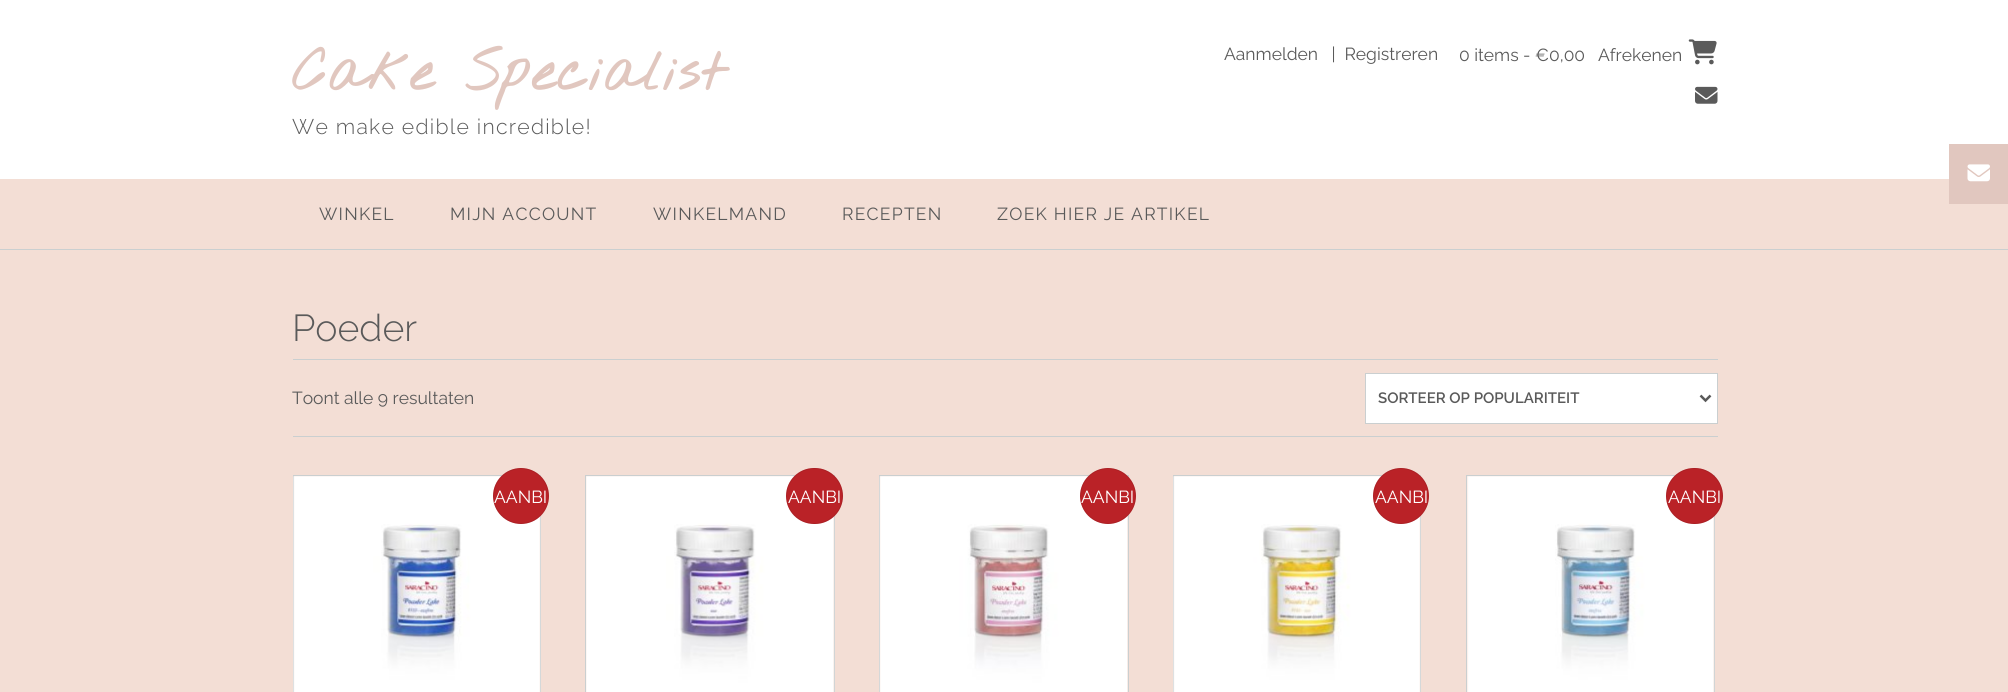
#include <cairo/cairo.h>
#include <math.h>
#include <stddef.h>

static cairo_t *cr;

static void use_color(int r, int g, int b) {
  cairo_set_source_rgb(cr, r / 255.0, g / 255.0, b / 255.0);
}

static void text(double x, double y, const char *s, const char *family, double size, int italic, int bold, int r, int g, int b) {
  cairo_select_font_face(cr, family, italic ? CAIRO_FONT_SLANT_ITALIC : CAIRO_FONT_SLANT_NORMAL,
    bold ? CAIRO_FONT_WEIGHT_BOLD : CAIRO_FONT_WEIGHT_NORMAL);
  cairo_set_font_size(cr, size);
  use_color(r, g, b);
  cairo_move_to(cr, x, y);
  cairo_show_text(cr, s);
}

static void spaced_text(double x, double y, const char *s, double letter, double word) {
  cairo_move_to(cr, x, y);
  while (*s) {
    char ch[5] = {0};
    int n = 0;
    do ch[n++] = *s++; while ((*s & 0xC0) == 0x80);
    cairo_show_text(cr, ch);
    cairo_rel_move_to(cr, letter + word * (*ch == ' '), 0);
  }
}

static void box(double x, double y, double w, double h, int r, int g, int b) {
  use_color(r, g, b);
  cairo_rectangle(cr, x, y, w, h);
  cairo_fill(cr);
}

static void round_rect(double x, double y, double w, double h, double r) {
  cairo_new_sub_path(cr);
  cairo_arc(cr, x + w - r, y + h - r, r, 0, M_PI / 2);
  cairo_arc(cr, x + r, y + h - r, r, M_PI / 2, M_PI);
  cairo_arc(cr, x + r, y + r, r, M_PI, 1.5 * M_PI);
  cairo_arc(cr, x + w - r, y + r, r, 1.5 * M_PI, 2 * M_PI);
  cairo_close_path(cr);
}

static void picture(const char *path, double x, double y, double w, double h) {
  cairo_surface_t *image = cairo_image_surface_create_from_png(path);
  cairo_save(cr);
  cairo_set_source_surface(cr, image, x, y);
  cairo_rectangle(cr, x, y, w, h);
  cairo_fill(cr);
  cairo_restore(cr);
  cairo_surface_destroy(image);
}

static void draw(void) {
  use_color(243, 222, 213);
  cairo_paint(cr);
  box(0, 0, 2008, 179, 255, 255, 255);
  picture("img_01.png", 1688, 39, 29, 26);
  picture("img_02.png", 1695, 86, 23, 18);
  box(0, 249, 2008, 1, 202, 207, 208);
  box(1949, 144, 59, 60, 225, 199, 191);
  picture("img_03.png", 1967, 164, 23, 18);
  box(293, 359, 712, 1, 202, 207, 208);
  box(293, 436, 1425, 1, 202, 207, 208);
  cairo_new_path(cr);
  cairo_move_to(cr, 1005, 359);
  cairo_line_to(cr, 1005, 360);
  cairo_line_to(cr, 1718, 360);
  cairo_line_to(cr, 1718, 436);
  cairo_line_to(cr, 1718, 359);
  cairo_close_path(cr);
  cairo_fill(cr);
  use_color(255, 255, 255);
  cairo_rectangle(cr, 1365.5, 373.5, 352, 50);
  cairo_fill_preserve(cr);
  use_color(202, 207, 208);
  cairo_set_line_width(cr, 1);
  cairo_stroke(cr);
  cairo_new_path(cr);
  cairo_move_to(cr, 1700.5, 395.5);
  cairo_line_to(cr, 1705.5, 400.5);
  cairo_line_to(cr, 1710.5, 395.5);
  use_color(89, 89, 89);
  cairo_set_line_width(cr, 2.5);
  cairo_stroke(cr);
  cairo_rectangle(cr, 293.5, 475.5, 247, 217);
  use_color(202, 207, 208);
  cairo_set_line_width(cr, 1);
  cairo_stroke(cr);
  picture("img_04.png", 293, 476, 248, 216);
  use_color(186, 34, 39);
  cairo_arc(cr, 521, 496, 28, 0, 2 * M_PI);
  cairo_fill(cr);
  cairo_arc(cr, 521, 496, 27.5, 0, 2 * M_PI);
  cairo_set_source_rgba(cr, 0, 0, 0, 0.08);
  cairo_stroke(cr);
  cairo_rectangle(cr, 585.5, 475.5, 249, 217);
  use_color(202, 207, 208);
  cairo_stroke(cr);
  picture("img_05.png", 586, 476, 249, 216);
  use_color(186, 34, 39);
  round_rect(786, 468, 57, 56, 28);
  cairo_fill(cr);
  round_rect(786.5, 468.5, 56, 55, 27.5);
  cairo_set_source_rgba(cr, 0, 0, 0, 0.08);
  cairo_stroke(cr);
  cairo_rectangle(cr, 879.5, 475.5, 249, 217);
  use_color(202, 207, 208);
  cairo_stroke(cr);
  picture("img_06.png", 879, 476, 249, 216);
  use_color(186, 34, 39);
  cairo_arc(cr, 1108, 496, 28, 0, 2 * M_PI);
  cairo_fill(cr);
  cairo_arc(cr, 1108, 496, 27.5, 0, 2 * M_PI);
  cairo_set_source_rgba(cr, 0, 0, 0, 0.08);
  cairo_stroke(cr);
  cairo_rectangle(cr, 1173.5, 475.5, 247, 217);
  use_color(202, 207, 208);
  cairo_stroke(cr);
  picture("img_07.png", 1173, 476, 248, 216);
  use_color(186, 34, 39);
  cairo_arc(cr, 1401, 496, 28, 0, 2 * M_PI);
  cairo_fill(cr);
  cairo_arc(cr, 1401, 496, 27.5, 0, 2 * M_PI);
  cairo_set_source_rgba(cr, 0, 0, 0, 0.08);
  cairo_stroke(cr);
  cairo_rectangle(cr, 1466.5, 475.5, 248, 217);
  use_color(202, 207, 208);
  cairo_stroke(cr);
  picture("img_08.png", 1467, 476, 248, 216);
  use_color(186, 34, 39);
  round_rect(1666, 468, 57, 56, 28);
  cairo_fill(cr);
  round_rect(1666.5, 468.5, 56, 55, 27.5);
  cairo_set_source_rgba(cr, 0, 0, 0, 0.08);
  cairo_stroke(cr);
  cairo_select_font_face(cr, "Nothing You Could Do", CAIRO_FONT_SLANT_NORMAL, CAIRO_FONT_WEIGHT_BOLD);
  cairo_set_font_size(cr, 56.25);
  use_color(225, 199, 191);
  spaced_text(292, 90, "Cake Specialist", 1.25, 0);
  cairo_select_font_face(cr, "Raleway Light", CAIRO_FONT_SLANT_NORMAL, CAIRO_FONT_WEIGHT_NORMAL);
  cairo_set_font_size(cr, 21.25);
  use_color(90, 90, 90);
  spaced_text(292, 134, "We make edible incredible!", 1.25, 0);
  text(1224, 60, "Aanmelden   |  Registreren", "Raleway", 17.5, 0, 0, 90, 90, 90);
  text(1459, 61, "0 items - €0,00", "Raleway", 17.5, 0, 0, 90, 90, 90);
  text(1598, 61, "Afrekenen", "Raleway", 17.5, 0, 0, 90, 90, 90);
  spaced_text(319, 220, "WINKEL", 1.25, 0);
  spaced_text(450, 220, "MIJN ACCOUNT", 1.25, 0);
  spaced_text(653, 220, "WINKELMAND", 1.25, 0);
  spaced_text(842, 220, "RECEPTEN", 1.25, 0);
  spaced_text(997, 220, "ZOEK HIER JE ARTIKEL", 1.25, 0);
  text(292, 341, "Poeder", "Raleway Light", 37.5, 0, 0, 90, 90, 90);
  text(292, 404, "Toont alle 9 resultaten", "Raleway", 17.5, 0, 0, 90, 90, 90);
  text(1378, 403, "SORTEER OP POPULARITEIT", "Raleway SemiBold", 15, 0, 0, 90, 90, 90);
  text(494, 503, "AANBI", "Raleway", 17.5, 0, 0, 255, 255, 255);
  text(788, 503, "AANBI", "Raleway", 17.5, 0, 0, 255, 255, 255);
  text(1081, 503, "AANBI", "Raleway", 17.5, 0, 0, 255, 255, 255);
  text(1375, 503, "AANBI", "Raleway", 17.5, 0, 0, 255, 255, 255);
  text(1668, 503, "AANBI", "Raleway", 17.5, 0, 0, 255, 255, 255);
}

int main(void) {
  cairo_surface_t *surface = cairo_image_surface_create(CAIRO_FORMAT_RGB24, 2008, 692);
  cr = cairo_create(surface);
  cairo_font_options_t *options = cairo_font_options_create();
  cairo_font_options_set_hint_metrics(options, CAIRO_HINT_METRICS_OFF);
  cairo_font_options_set_hint_style(options, CAIRO_HINT_STYLE_NONE);
  cairo_set_font_options(cr, options);
  cairo_set_miter_limit(cr, 4);
  draw();
  cairo_surface_write_to_png(surface, "out.png");
  cairo_font_options_destroy(options);
  cairo_destroy(cr);
  cairo_surface_destroy(surface);
  return 0;
}
